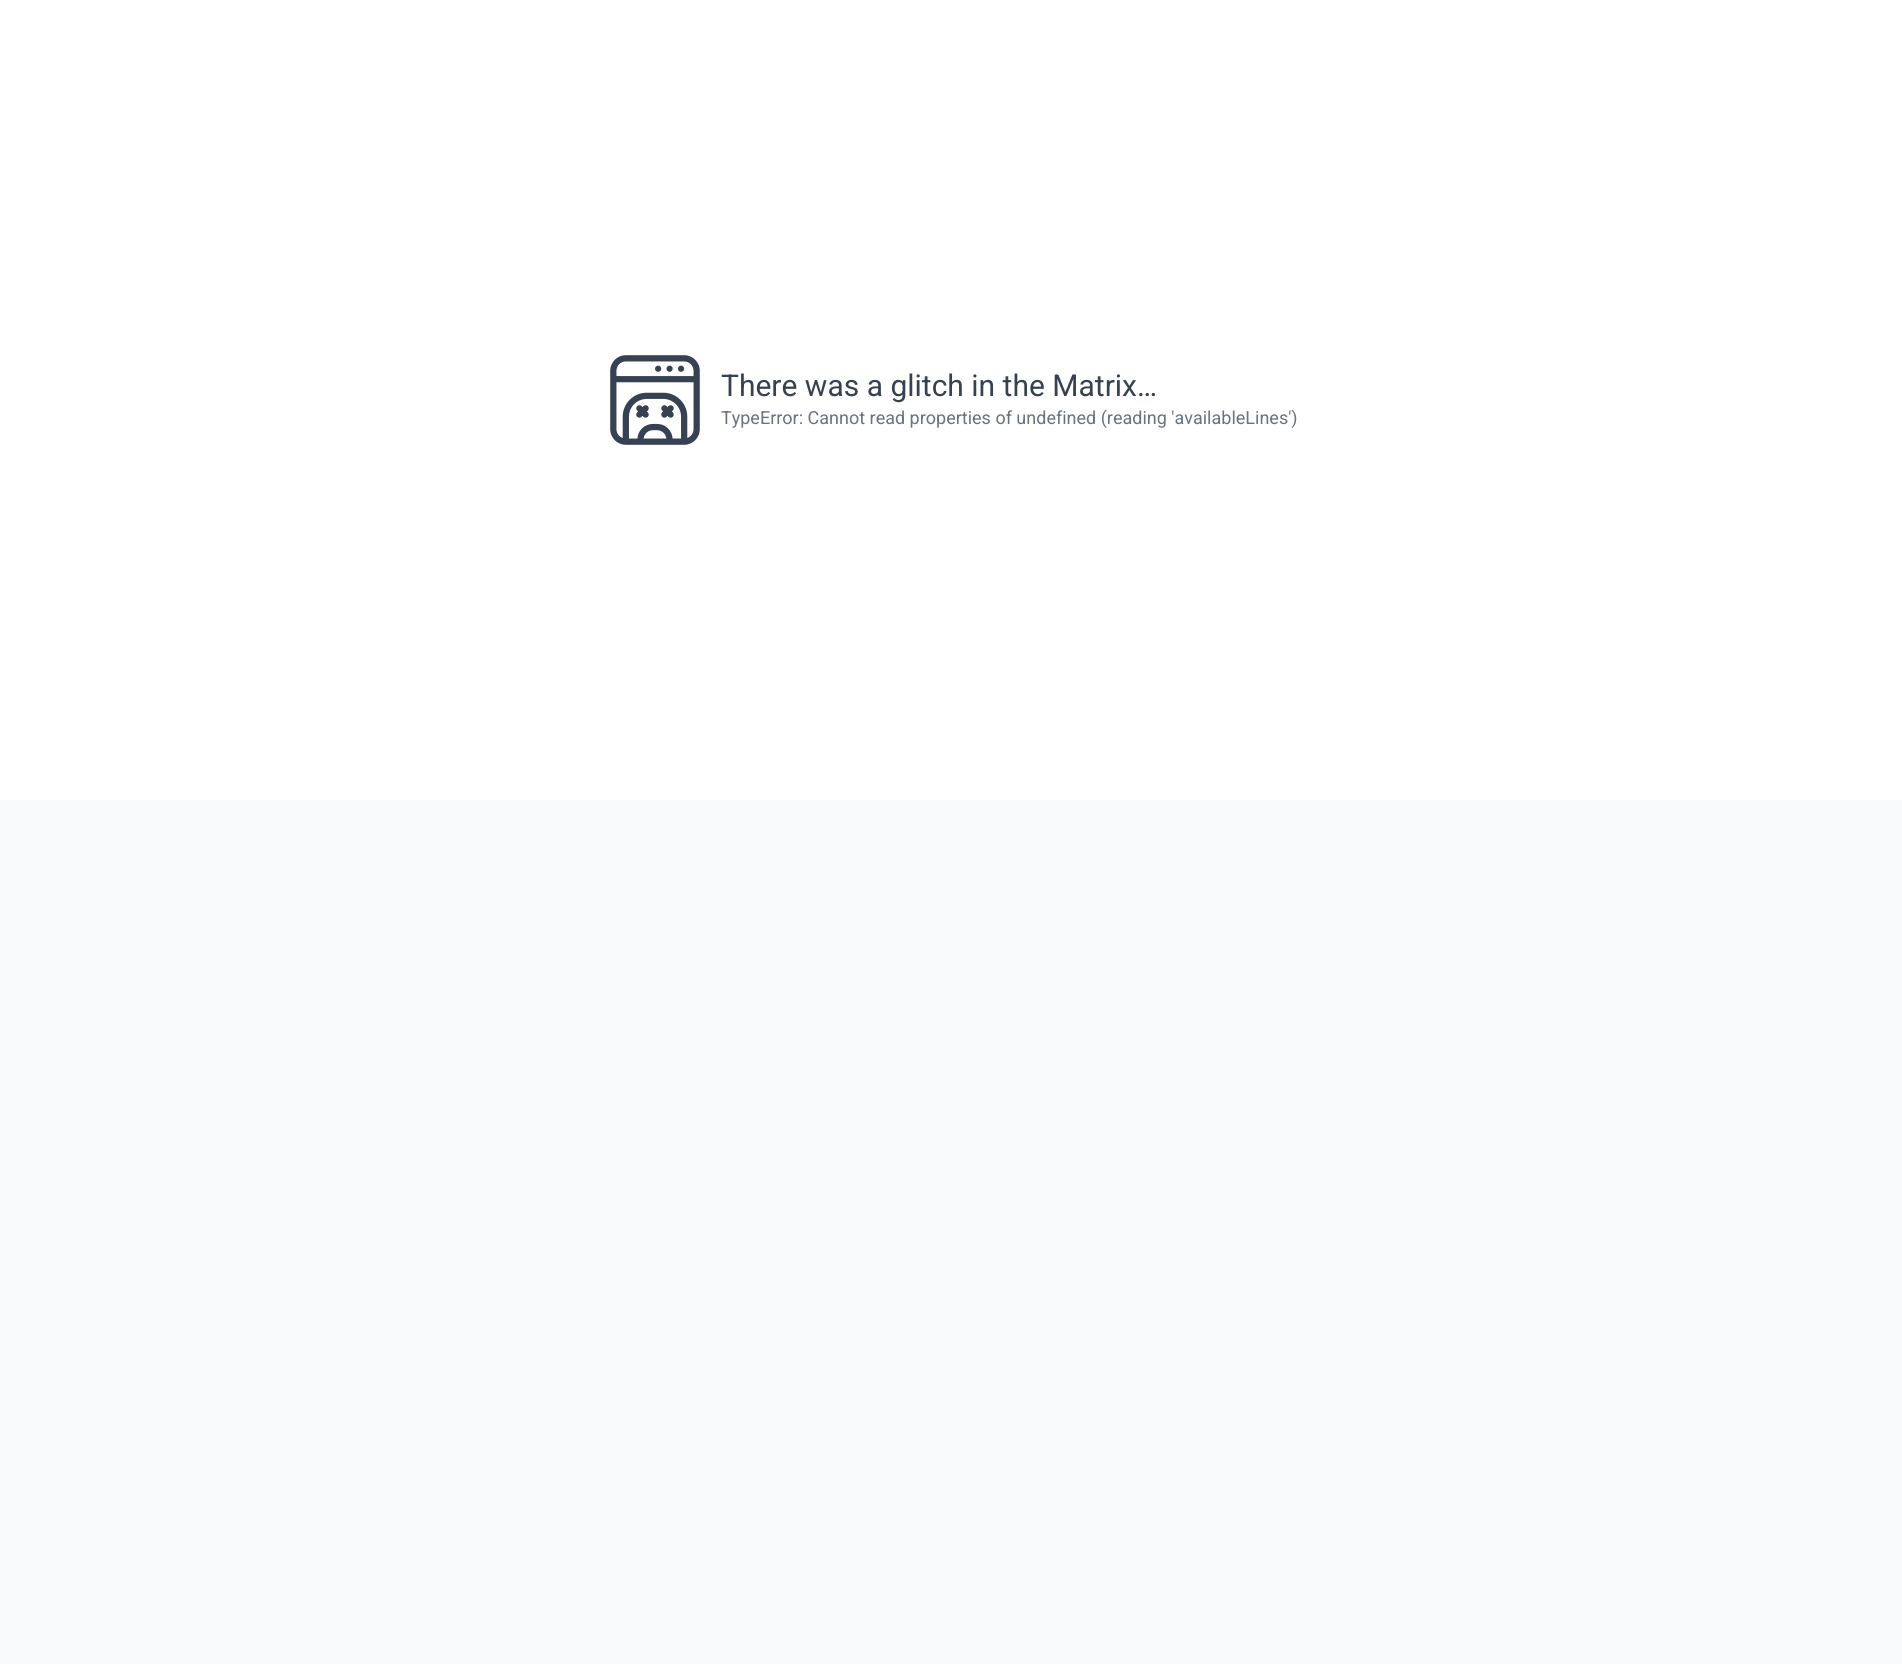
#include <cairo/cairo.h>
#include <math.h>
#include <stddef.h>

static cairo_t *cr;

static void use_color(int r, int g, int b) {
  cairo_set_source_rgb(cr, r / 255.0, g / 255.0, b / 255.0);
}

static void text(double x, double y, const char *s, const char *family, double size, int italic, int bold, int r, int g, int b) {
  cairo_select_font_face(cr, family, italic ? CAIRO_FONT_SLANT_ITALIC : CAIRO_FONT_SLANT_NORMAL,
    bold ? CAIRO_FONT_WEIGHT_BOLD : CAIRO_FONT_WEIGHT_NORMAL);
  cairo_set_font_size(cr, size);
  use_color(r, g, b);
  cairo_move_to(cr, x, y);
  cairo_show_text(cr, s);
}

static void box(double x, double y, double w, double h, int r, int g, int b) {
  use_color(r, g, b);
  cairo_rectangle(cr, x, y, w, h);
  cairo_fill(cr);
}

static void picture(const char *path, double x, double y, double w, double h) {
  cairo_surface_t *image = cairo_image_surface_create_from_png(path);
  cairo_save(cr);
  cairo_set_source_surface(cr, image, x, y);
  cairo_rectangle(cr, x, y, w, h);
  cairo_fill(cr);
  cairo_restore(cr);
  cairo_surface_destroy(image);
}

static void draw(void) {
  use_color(249, 250, 251);
  cairo_paint(cr);
  box(0, 0, 1902, 800, 255, 255, 255);
  picture("img_01.png", 610, 355, 90, 90);
  text(721, 396, "There was a glitch in the Matrix…", "Roboto", 30, 0, 0, 55, 65, 81);
  text(721, 424, "TypeError: Cannot read properties of undefined (reading 'availableLines')", "Roboto", 18, 0, 0, 107, 114, 128);
}

int main(void) {
  cairo_surface_t *surface = cairo_image_surface_create(CAIRO_FORMAT_RGB24, 1902, 1664);
  cr = cairo_create(surface);
  cairo_font_options_t *options = cairo_font_options_create();
  cairo_font_options_set_hint_metrics(options, CAIRO_HINT_METRICS_OFF);
  cairo_font_options_set_hint_style(options, CAIRO_HINT_STYLE_NONE);
  cairo_set_font_options(cr, options);
  cairo_set_miter_limit(cr, 4);
  draw();
  cairo_surface_write_to_png(surface, "out.png");
  cairo_font_options_destroy(options);
  cairo_destroy(cr);
  cairo_surface_destroy(surface);
  return 0;
}
